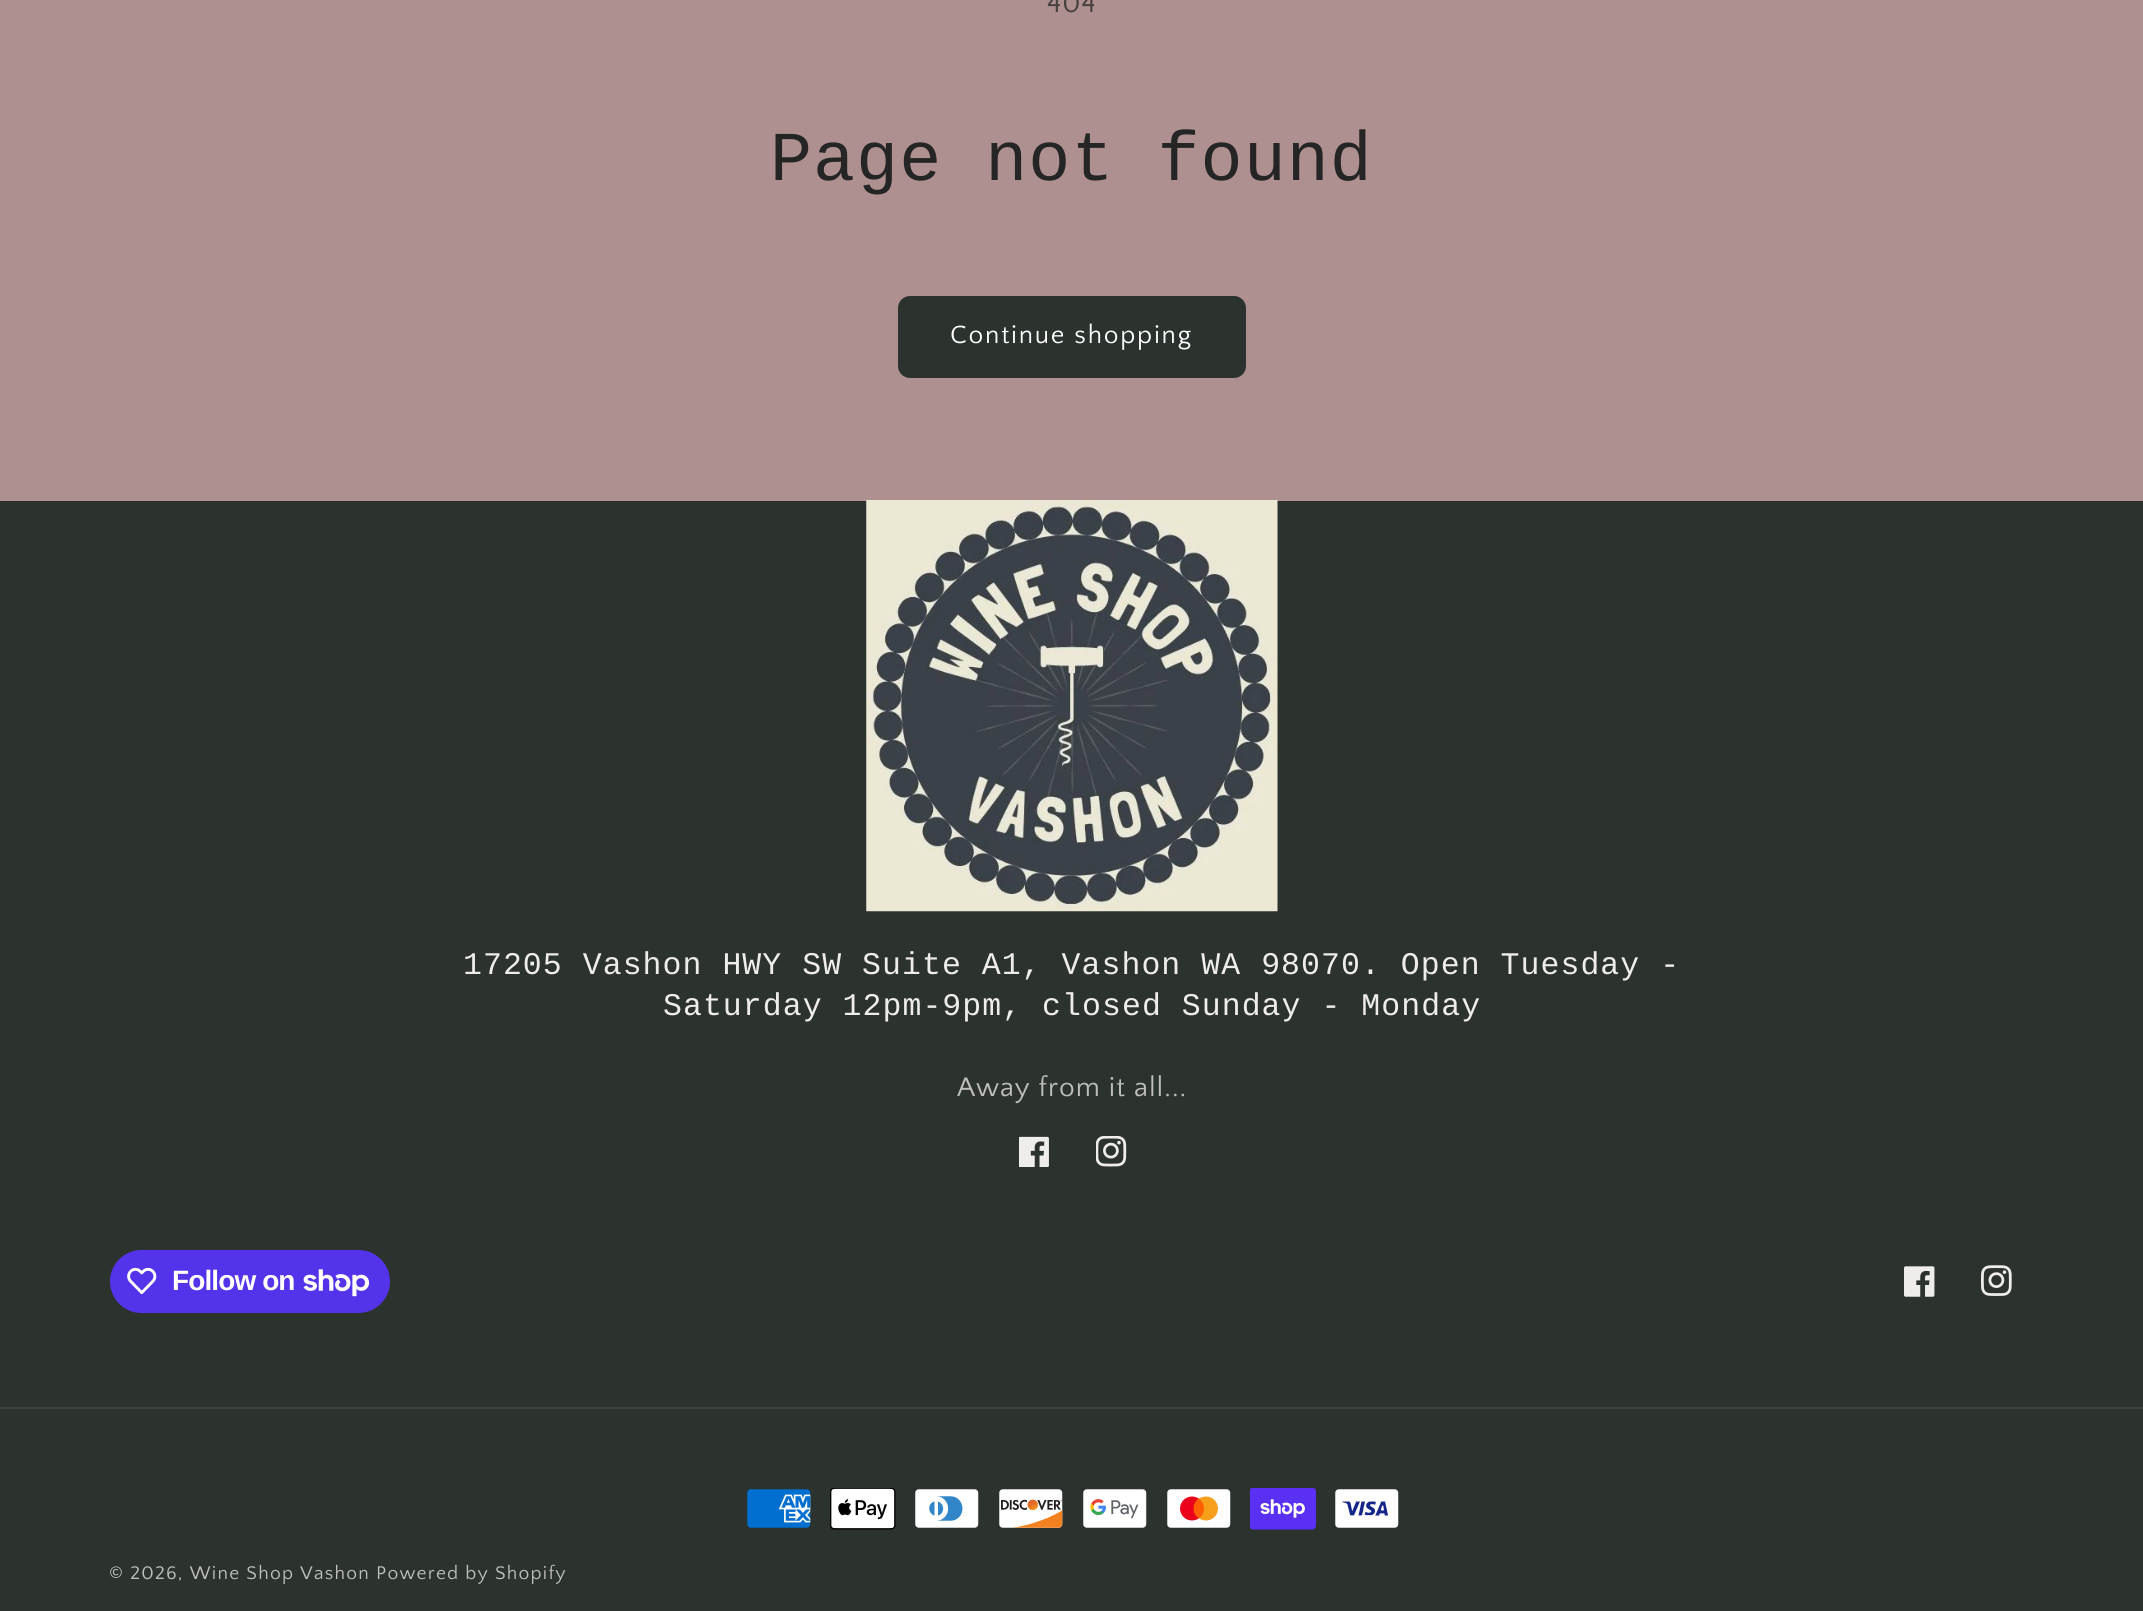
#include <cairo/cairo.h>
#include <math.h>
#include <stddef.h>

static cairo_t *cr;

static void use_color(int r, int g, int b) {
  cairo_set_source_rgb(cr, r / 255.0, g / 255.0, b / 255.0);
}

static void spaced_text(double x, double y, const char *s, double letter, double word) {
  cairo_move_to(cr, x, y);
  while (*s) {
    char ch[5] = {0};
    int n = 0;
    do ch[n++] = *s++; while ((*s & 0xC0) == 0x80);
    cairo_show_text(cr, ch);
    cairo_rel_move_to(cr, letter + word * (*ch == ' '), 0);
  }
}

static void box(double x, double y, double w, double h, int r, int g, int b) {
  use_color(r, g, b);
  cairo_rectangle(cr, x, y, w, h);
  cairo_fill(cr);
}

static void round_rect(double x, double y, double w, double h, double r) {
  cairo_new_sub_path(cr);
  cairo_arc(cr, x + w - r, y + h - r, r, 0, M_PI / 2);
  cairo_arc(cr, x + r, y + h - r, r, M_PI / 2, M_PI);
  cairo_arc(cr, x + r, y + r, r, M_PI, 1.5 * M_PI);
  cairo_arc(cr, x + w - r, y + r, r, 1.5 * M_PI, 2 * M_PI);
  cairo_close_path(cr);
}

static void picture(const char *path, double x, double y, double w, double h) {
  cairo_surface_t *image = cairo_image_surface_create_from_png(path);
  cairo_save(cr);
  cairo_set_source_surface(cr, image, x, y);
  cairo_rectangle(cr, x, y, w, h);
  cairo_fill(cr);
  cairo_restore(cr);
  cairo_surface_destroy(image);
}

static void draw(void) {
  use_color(174, 144, 144);
  cairo_paint(cr);
  use_color(44, 51, 47);
  round_rect(898, 296, 348, 82, 12);
  cairo_fill(cr);
  box(0, 501, 2143, 1110, 44, 51, 47);
  picture("img_01.png", 866, 500, 412, 412);
  picture("img_02.png", 1019, 1136, 30, 31);
  picture("img_03.png", 1096, 1136, 31, 31);
  use_color(84, 51, 235);
  round_rect(110, 1250, 280, 63, 31.5);
  cairo_fill(cr);
  picture("img_04.png", 127, 1267, 30, 28);
  picture("img_05.png", 303, 1269, 66, 28);
  picture("img_06.png", 1904, 1266, 31, 31);
  picture("img_07.png", 1981, 1265, 31, 31);
  box(0, 1407, 2143, 2, 60, 66, 62);
  picture("img_08.png", 747, 1489, 64, 39);
  picture("img_09.png", 830, 1488, 66, 42);
  picture("img_10.png", 915, 1489, 64, 39);
  picture("img_11.png", 999, 1489, 64, 39);
  picture("img_12.png", 1083, 1489, 64, 39);
  picture("img_13.png", 1167, 1489, 64, 39);
  picture("img_14.png", 1250, 1488, 66, 42);
  picture("img_15.png", 1335, 1489, 64, 39);
  cairo_select_font_face(cr, "Quattrocento Sans", CAIRO_FONT_SLANT_NORMAL, CAIRO_FONT_WEIGHT_NORMAL);
  cairo_set_font_size(cr, 28);
  use_color(71, 64, 64);
  spaced_text(1047, 12, "404", 1.05, 0);
  cairo_select_font_face(cr, "Liberation Mono", CAIRO_FONT_SLANT_NORMAL, CAIRO_FONT_WEIGHT_NORMAL);
  cairo_set_font_size(cr, 70);
  use_color(37, 37, 37);
  spaced_text(770, 180, "Page not found", 1.05, 0);
  cairo_select_font_face(cr, "Quattrocento Sans", CAIRO_FONT_SLANT_NORMAL, CAIRO_FONT_WEIGHT_NORMAL);
  cairo_set_font_size(cr, 26.25);
  use_color(255, 255, 255);
  spaced_text(950, 343, "Continue shopping", 1.75, 0);
  cairo_select_font_face(cr, "Liberation Mono", CAIRO_FONT_SLANT_NORMAL, CAIRO_FONT_WEIGHT_NORMAL);
  cairo_set_font_size(cr, 31.5);
  use_color(239, 236, 236);
  spaced_text(463, 974, "17205 Vashon HWY SW Suite A1, Vashon WA 98070. Open Tuesday -", 1.05, 0);
  spaced_text(663, 1015, "Saturday 12pm-9pm, closed Sunday - Monday", 1.05, 0);
  cairo_select_font_face(cr, "Quattrocento Sans", CAIRO_FONT_SLANT_NORMAL, CAIRO_FONT_WEIGHT_NORMAL);
  cairo_set_font_size(cr, 28);
  use_color(190, 190, 189);
  spaced_text(957, 1096, "Away from it all...", 1.05, 0);
  cairo_select_font_face(cr, "Liberation Sans", CAIRO_FONT_SLANT_NORMAL, CAIRO_FONT_WEIGHT_BOLD);
  use_color(255, 255, 255);
  spaced_text(172, 1290, "Follow on", -0.9, 0);
  cairo_select_font_face(cr, "Quattrocento Sans", CAIRO_FONT_SLANT_NORMAL, CAIRO_FONT_WEIGHT_NORMAL);
  cairo_set_font_size(cr, 19.25);
  use_color(190, 190, 189);
  spaced_text(109, 1579, "© 2026, Wine Shop Vashon", 1.25, 0);
  spaced_text(376, 1579, "Powered by Shopify", 1.25, 0);
}

int main(void) {
  cairo_surface_t *surface = cairo_image_surface_create(CAIRO_FORMAT_RGB24, 2143, 1611);
  cr = cairo_create(surface);
  cairo_font_options_t *options = cairo_font_options_create();
  cairo_font_options_set_hint_metrics(options, CAIRO_HINT_METRICS_OFF);
  cairo_font_options_set_hint_style(options, CAIRO_HINT_STYLE_NONE);
  cairo_set_font_options(cr, options);
  cairo_set_miter_limit(cr, 4);
  draw();
  cairo_surface_write_to_png(surface, "out.png");
  cairo_font_options_destroy(options);
  cairo_destroy(cr);
  cairo_surface_destroy(surface);
  return 0;
}
